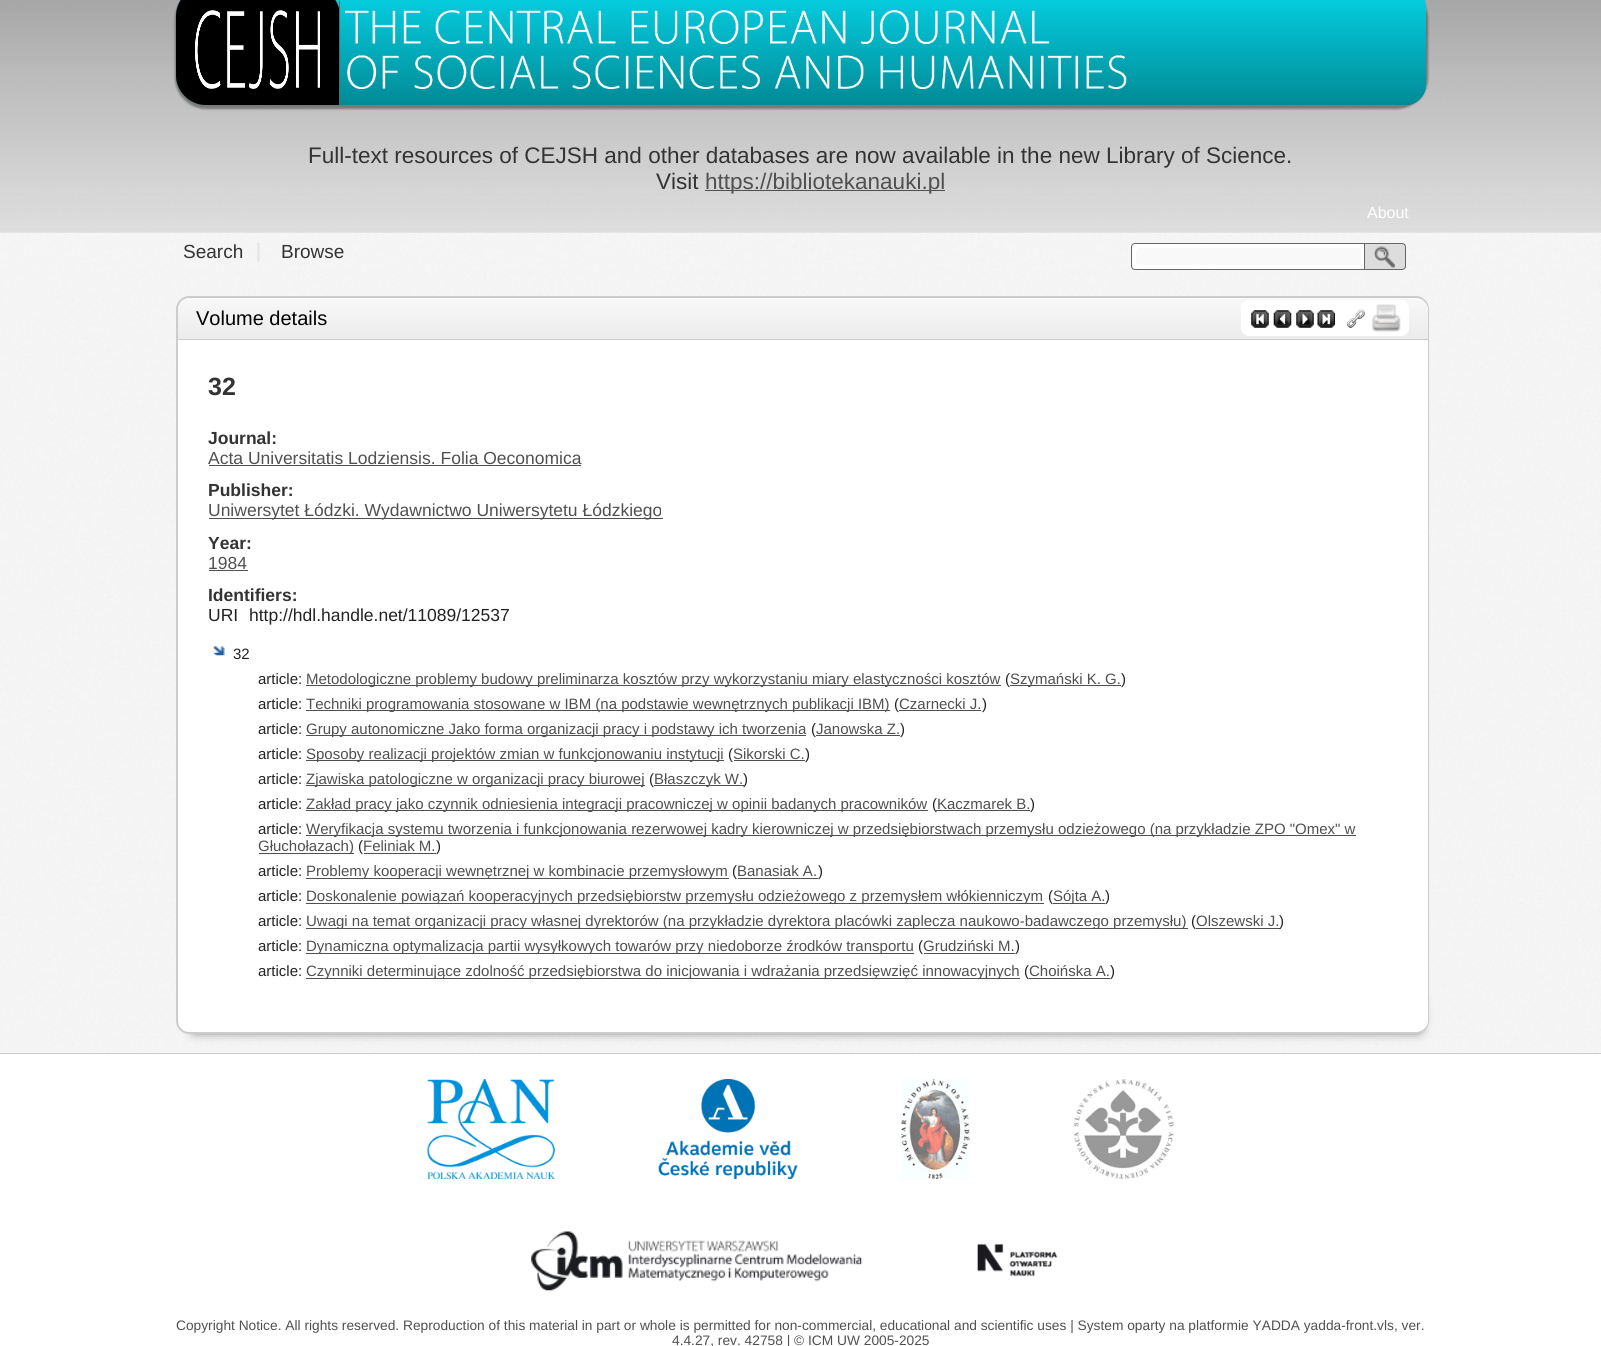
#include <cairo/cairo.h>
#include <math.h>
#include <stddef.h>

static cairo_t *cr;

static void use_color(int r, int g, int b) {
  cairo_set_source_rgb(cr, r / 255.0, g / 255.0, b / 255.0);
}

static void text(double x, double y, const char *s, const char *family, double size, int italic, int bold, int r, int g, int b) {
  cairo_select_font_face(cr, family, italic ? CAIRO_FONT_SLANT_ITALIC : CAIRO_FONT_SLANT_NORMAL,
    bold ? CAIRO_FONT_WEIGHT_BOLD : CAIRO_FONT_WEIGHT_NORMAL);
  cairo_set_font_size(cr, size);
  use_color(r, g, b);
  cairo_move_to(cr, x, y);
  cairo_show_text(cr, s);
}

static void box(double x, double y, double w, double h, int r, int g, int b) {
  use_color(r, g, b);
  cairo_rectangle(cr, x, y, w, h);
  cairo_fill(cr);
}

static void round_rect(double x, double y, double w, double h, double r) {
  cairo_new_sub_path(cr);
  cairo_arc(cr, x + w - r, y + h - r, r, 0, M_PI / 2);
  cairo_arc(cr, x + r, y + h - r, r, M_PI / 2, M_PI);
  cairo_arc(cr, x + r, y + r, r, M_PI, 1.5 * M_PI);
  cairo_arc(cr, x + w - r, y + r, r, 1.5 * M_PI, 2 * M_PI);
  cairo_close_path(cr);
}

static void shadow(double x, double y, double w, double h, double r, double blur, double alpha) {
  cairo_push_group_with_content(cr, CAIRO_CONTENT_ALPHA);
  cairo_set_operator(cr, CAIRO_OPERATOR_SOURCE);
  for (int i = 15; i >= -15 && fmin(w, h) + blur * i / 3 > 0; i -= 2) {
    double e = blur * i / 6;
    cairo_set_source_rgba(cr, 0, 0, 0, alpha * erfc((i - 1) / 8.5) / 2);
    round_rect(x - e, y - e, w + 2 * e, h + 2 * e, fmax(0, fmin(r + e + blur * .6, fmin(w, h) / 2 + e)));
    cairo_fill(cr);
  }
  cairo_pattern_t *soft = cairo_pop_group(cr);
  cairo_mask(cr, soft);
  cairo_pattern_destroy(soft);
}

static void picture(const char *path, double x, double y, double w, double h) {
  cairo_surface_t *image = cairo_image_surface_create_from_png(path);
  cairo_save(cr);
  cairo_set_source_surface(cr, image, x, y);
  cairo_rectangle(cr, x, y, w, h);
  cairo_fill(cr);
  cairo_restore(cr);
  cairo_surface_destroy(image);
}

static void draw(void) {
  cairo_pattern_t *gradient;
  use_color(255, 255, 255);
  cairo_paint(cr);
  picture("img_01.png", 0, 0, 1601, 1053);
  use_color(50, 50, 50);
  shadow(175, -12, 1253, 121, 31, 1, 0.5);
  cairo_save(cr);
  cairo_new_path(cr);
  cairo_move_to(cr, 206, -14);
  cairo_line_to(cr, 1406, -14);
  cairo_curve_to(cr, 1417, -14, 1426, -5, 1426, 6);
  cairo_line_to(cr, 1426, 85);
  cairo_curve_to(cr, 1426, 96, 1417, 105, 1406, 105);
  cairo_line_to(cr, 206, 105);
  cairo_curve_to(cr, 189.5, 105, 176, 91.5, 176, 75);
  cairo_line_to(cr, 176, 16);
  cairo_curve_to(cr, 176, -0.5, 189.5, -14, 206, -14);
  cairo_close_path(cr);
  cairo_clip(cr);
  shadow(175, -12, 1253, 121, 31, 1, 0.5);
  cairo_restore(cr);
  gradient = cairo_pattern_create_linear(801, -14, 801, 105);
  cairo_pattern_add_color_stop_rgba(gradient, 0, 0.02, 0.831, 0.906, 1);
  cairo_pattern_add_color_stop_rgba(gradient, 1, 0.008, 0.541, 0.588, 1);
  cairo_set_source(cr, gradient);
  cairo_pattern_destroy(gradient);
  cairo_new_path(cr);
  cairo_move_to(cr, 206, -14);
  cairo_line_to(cr, 1406, -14);
  cairo_curve_to(cr, 1417, -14, 1426, -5, 1426, 6);
  cairo_line_to(cr, 1426, 85);
  cairo_curve_to(cr, 1426, 96, 1417, 105, 1406, 105);
  cairo_line_to(cr, 206, 105);
  cairo_curve_to(cr, 189.5, 105, 176, 91.5, 176, 75);
  cairo_line_to(cr, 176, 16);
  cairo_curve_to(cr, 176, -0.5, 189.5, -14, 206, -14);
  cairo_close_path(cr);
  cairo_fill(cr);
  use_color(0, 0, 0);
  cairo_new_path(cr);
  cairo_move_to(cr, 206, -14);
  cairo_line_to(cr, 310, -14);
  cairo_curve_to(cr, 326.5, -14, 340, -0.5, 340, 16);
  cairo_line_to(cr, 340, 105);
  cairo_line_to(cr, 206, 105);
  cairo_curve_to(cr, 189.5, 105, 176, 91.5, 176, 75);
  cairo_line_to(cr, 176, 16);
  cairo_curve_to(cr, 176, -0.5, 189.5, -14, 206, -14);
  cairo_close_path(cr);
  cairo_fill(cr);
  box(339, 1, 1, 104, 102, 102, 102);
  picture("img_02.png", 195, 10, 125, 79);
  picture("img_03.png", 345, 10, 782, 79);
  box(705, 190, 240, 1, 81, 80, 80);
  picture("img_04.png", 0, 232, 1601, 39);
  use_color(100, 100, 100);
  shadow(258, 243, 1, 18, 0, 1, 0.2);
  use_color(255, 255, 255);
  cairo_new_path(cr);
  cairo_move_to(cr, 1135, 243.5);
  cairo_line_to(cr, 1365.5, 243.5);
  cairo_line_to(cr, 1365.5, 269.5);
  cairo_line_to(cr, 1135, 269.5);
  cairo_curve_to(cr, 1133, 269.5, 1131.5, 268, 1131.5, 266);
  cairo_line_to(cr, 1131.5, 247);
  cairo_curve_to(cr, 1131.5, 245, 1133, 243.5, 1135, 243.5);
  cairo_close_path(cr);
  cairo_fill_preserve(cr);
  use_color(102, 102, 102);
  cairo_set_line_width(cr, 1);
  cairo_stroke(cr);
  use_color(249, 249, 249);
  cairo_new_path(cr);
  cairo_move_to(cr, 1140, 248);
  cairo_line_to(cr, 1361, 248);
  cairo_line_to(cr, 1361, 265);
  cairo_line_to(cr, 1140, 265);
  cairo_curve_to(cr, 1138, 265, 1136, 263, 1136, 261);
  cairo_line_to(cr, 1136, 252);
  cairo_curve_to(cr, 1136, 250, 1138, 248, 1140, 248);
  cairo_close_path(cr);
  cairo_fill(cr);
  use_color(221, 221, 221);
  cairo_new_path(cr);
  cairo_move_to(cr, 1364, 243);
  cairo_line_to(cr, 1402, 243);
  cairo_curve_to(cr, 1404, 243, 1406, 245, 1406, 247);
  cairo_line_to(cr, 1406, 266);
  cairo_curve_to(cr, 1406, 268, 1404, 270, 1402, 270);
  cairo_line_to(cr, 1364, 270);
  cairo_close_path(cr);
  cairo_fill(cr);
  picture("img_05.png", 1373, 246, 22, 22);
  cairo_new_path(cr);
  cairo_move_to(cr, 1364.5, 243.5);
  cairo_line_to(cr, 1402, 243.5);
  cairo_curve_to(cr, 1404, 243.5, 1405.5, 245, 1405.5, 247);
  cairo_line_to(cr, 1405.5, 266);
  cairo_curve_to(cr, 1405.5, 268, 1404, 269.5, 1402, 269.5);
  cairo_line_to(cr, 1364.5, 269.5);
  cairo_close_path(cr);
  use_color(102, 102, 102);
  cairo_stroke(cr);
  use_color(204, 204, 204);
  cairo_set_fill_rule(cr, CAIRO_FILL_RULE_EVEN_ODD);
  cairo_new_path(cr);
  cairo_move_to(cr, 189, 296);
  cairo_line_to(cr, 1416, 296);
  cairo_curve_to(cr, 1423, 296, 1429, 302, 1429, 309);
  cairo_line_to(cr, 1429, 340);
  cairo_line_to(cr, 176, 340);
  cairo_line_to(cr, 176, 309);
  cairo_curve_to(cr, 176, 302, 182, 296, 189, 296);
  cairo_close_path(cr);
  cairo_move_to(cr, 189, 298);
  cairo_line_to(cr, 1416, 298);
  cairo_curve_to(cr, 1422, 298, 1428, 303, 1428, 309);
  cairo_line_to(cr, 1428, 340);
  cairo_line_to(cr, 178, 340);
  cairo_line_to(cr, 178, 309);
  cairo_curve_to(cr, 178, 303, 183, 298, 189, 298);
  cairo_close_path(cr);
  cairo_fill(cr);
  gradient = cairo_pattern_create_linear(803, 297, 803, 339);
  cairo_pattern_add_color_stop_rgba(gradient, 0, 0.976, 0.976, 0.976, 1);
  cairo_pattern_add_color_stop_rgba(gradient, 1, 0.922, 0.922, 0.922, 1);
  cairo_set_source(cr, gradient);
  cairo_pattern_destroy(gradient);
  cairo_new_path(cr);
  cairo_move_to(cr, 191, 298);
  cairo_line_to(cr, 1415, 298);
  cairo_curve_to(cr, 1422, 298, 1428, 304, 1428, 311);
  cairo_line_to(cr, 1428, 339);
  cairo_line_to(cr, 178, 339);
  cairo_line_to(cr, 178, 311);
  cairo_curve_to(cr, 178, 304, 184, 298, 191, 298);
  cairo_close_path(cr);
  cairo_fill(cr);
  box(178, 339, 1250, 1, 204, 204, 204);
  use_color(255, 255, 255);
  round_rect(1241, 300, 168, 36, 8);
  cairo_fill(cr);
  picture("img_06.png", 1251, 310, 18, 18);
  picture("img_07.png", 1273, 310, 19, 18);
  picture("img_08.png", 1296, 310, 18, 18);
  picture("img_09.png", 1317, 310, 18, 18);
  picture("img_10.png", 1347, 309, 18, 19);
  picture("img_11.png", 1372, 304, 29, 28);
  use_color(0, 0, 0);
  shadow(194, 999, 1225, 31, 0, 6, 0.8);
  use_color(255, 255, 255);
  cairo_new_path(cr);
  cairo_move_to(cr, 178, 340);
  cairo_line_to(cr, 1428, 340);
  cairo_line_to(cr, 1428, 1022);
  cairo_curve_to(cr, 1428, 1028, 1423, 1033, 1417, 1033);
  cairo_line_to(cr, 189, 1033);
  cairo_curve_to(cr, 183, 1033, 178, 1028, 178, 1022);
  cairo_close_path(cr);
  cairo_fill(cr);
  use_color(204, 204, 204);
  cairo_new_path(cr);
  cairo_move_to(cr, 176, 340);
  cairo_line_to(cr, 1429, 340);
  cairo_line_to(cr, 1429, 1021);
  cairo_curve_to(cr, 1429, 1028, 1423, 1034, 1416, 1034);
  cairo_line_to(cr, 189, 1034);
  cairo_curve_to(cr, 182, 1034, 176, 1028, 176, 1021);
  cairo_close_path(cr);
  cairo_move_to(cr, 178, 340);
  cairo_line_to(cr, 1428, 340);
  cairo_line_to(cr, 1428, 1021);
  cairo_curve_to(cr, 1428, 1027, 1422, 1032, 1416, 1032);
  cairo_line_to(cr, 189, 1032);
  cairo_curve_to(cr, 183, 1032, 178, 1027, 178, 1021);
  cairo_close_path(cr);
  cairo_fill(cr);
  box(209, 465, 372, 1, 81, 80, 80);
  box(209, 518, 454, 1, 81, 80, 80);
  box(209, 570, 39, 1, 81, 80, 80);
  picture("img_12.png", 213, 646, 12, 10);
  box(306, 685, 695, 1, 81, 80, 80);
  box(1010, 685, 111, 1, 81, 80, 80);
  box(306, 710, 584, 1, 81, 80, 80);
  box(306, 735, 500, 1, 81, 80, 80);
  box(816, 735, 84, 1, 81, 80, 80);
  box(306, 760, 418, 1, 81, 80, 80);
  box(734, 760, 71, 1, 81, 80, 80);
  box(306, 785, 339, 1, 81, 80, 80);
  box(306, 810, 622, 1, 81, 80, 80);
  box(306, 835, 1050, 1, 81, 80, 80);
  box(259, 853, 95, 1, 81, 80, 80);
  box(364, 853, 72, 1, 81, 80, 80);
  box(306, 878, 423, 1, 81, 80, 80);
  box(738, 878, 80, 1, 81, 80, 80);
  box(306, 903, 738, 1, 81, 80, 80);
  box(1053, 903, 52, 1, 81, 80, 80);
  box(306, 928, 882, 1, 81, 80, 80);
  box(1196, 928, 84, 1, 81, 80, 80);
  box(306, 953, 608, 1, 81, 80, 80);
  box(924, 953, 91, 1, 81, 80, 80);
  box(306, 978, 714, 1, 81, 80, 80);
  box(0, 1053, 1601, 1, 204, 204, 204);
  picture("img_13.png", 427, 1079, 128, 100);
  picture("img_14.png", 658, 1079, 140, 100);
  picture("img_15.png", 901, 1079, 69, 100);
  picture("img_16.png", 1073, 1079, 101, 100);
  picture("img_17.png", 531, 1231, 331, 60);
  picture("img_18.png", 977, 1243, 81, 34);
  text(308, 163, "Full-text resources of CEJSH and other databases are now available in the new Library of Science.", "Liberation Sans", 22.5, 0, 0, 51, 51, 51);
  text(656, 189, "Visit", "Liberation Sans", 22.5, 0, 0, 51, 51, 51);
  text(705, 189, "https://bibliotekanauki.pl", "Liberation Sans", 22.5, 0, 0, 81, 80, 80);
  text(1367, 218, "About", "Liberation Sans", 16, 0, 0, 255, 255, 255);
  text(183, 258, "Search", "Liberation Sans", 19, 0, 0, 51, 51, 51);
  text(281, 258, "Browse", "Liberation Sans", 19, 0, 0, 51, 51, 51);
  text(196, 325, "Volume details", "Liberation Sans", 20, 0, 0, 0, 0, 0);
  text(208, 395, "32", "Liberation Sans", 25, 0, 1, 51, 51, 51);
  text(208, 444, "Journal:", "Liberation Sans", 17.5, 0, 1, 51, 51, 51);
  text(208, 464, "Acta Universitatis Lodziensis. Folia Oeconomica", "Liberation Sans", 17.5, 0, 0, 81, 80, 80);
  text(208, 496, "Publisher:", "Liberation Sans", 17.5, 0, 1, 51, 51, 51);
  text(208, 516, "Uniwersytet Łódzki. Wydawnictwo Uniwersytetu Łódzkiego", "Liberation Sans", 17.5, 0, 0, 81, 80, 80);
  text(208, 549, "Year:", "Liberation Sans", 17.5, 0, 1, 51, 51, 51);
  text(208, 569, "1984", "Liberation Sans", 17.5, 0, 0, 81, 80, 80);
  text(208, 601, "Identifiers:", "Liberation Sans", 17.5, 0, 1, 51, 51, 51);
  text(208, 621, "URI", "Liberation Sans", 17.5, 0, 0, 34, 34, 34);
  text(249, 621, "http://hdl.handle.net/11089/12537", "Liberation Sans", 17.5, 0, 0, 34, 34, 34);
  text(233, 659, "32", "Liberation Sans", 15, 0, 0, 34, 34, 34);
  text(258, 684, "article:", "Liberation Sans", 15, 0, 0, 34, 34, 34);
  text(306, 684, "Metodologiczne problemy budowy preliminarza kosztów przy wykorzystaniu miary elastyczności kosztów", "Liberation Sans", 15, 0, 0, 81, 80, 80);
  text(1005, 684, "(", "Liberation Sans", 15, 0, 0, 34, 34, 34);
  text(1010, 684, "Szymański K. G.", "Liberation Sans", 15, 0, 0, 81, 80, 80);
  text(1121, 684, ")", "Liberation Sans", 15, 0, 0, 34, 34, 34);
  text(258, 709, "article:", "Liberation Sans", 15, 0, 0, 34, 34, 34);
  text(306, 709, "Techniki programowania stosowane w IBM (na podstawie wewnętrznych publikacji IBM)", "Liberation Sans", 15, 0, 0, 81, 80, 80);
  text(894, 709, "(", "Liberation Sans", 15, 0, 0, 34, 34, 34);
  box(899, 710, 82, 1, 81, 80, 80);
  text(899, 709, "Czarnecki J.", "Liberation Sans", 15, 0, 0, 81, 80, 80);
  text(982, 709, ")", "Liberation Sans", 15, 0, 0, 34, 34, 34);
  text(258, 734, "article:", "Liberation Sans", 15, 0, 0, 34, 34, 34);
  text(306, 734, "Grupy autonomiczne Jako forma organizacji pracy i podstawy ich tworzenia", "Liberation Sans", 15, 0, 0, 81, 80, 80);
  text(811, 734, "(", "Liberation Sans", 15, 0, 0, 34, 34, 34);
  text(816, 734, "Janowska Z.", "Liberation Sans", 15, 0, 0, 81, 80, 80);
  text(900, 734, ")", "Liberation Sans", 15, 0, 0, 34, 34, 34);
  text(258, 759, "article:", "Liberation Sans", 15, 0, 0, 34, 34, 34);
  text(306, 759, "Sposoby realizacji projektów zmian w funkcjonowaniu instytucji", "Liberation Sans", 15, 0, 0, 81, 80, 80);
  text(728, 759, "(", "Liberation Sans", 15, 0, 0, 34, 34, 34);
  text(733, 759, "Sikorski C.", "Liberation Sans", 15, 0, 0, 81, 80, 80);
  text(805, 759, ")", "Liberation Sans", 15, 0, 0, 34, 34, 34);
  text(258, 784, "article:", "Liberation Sans", 15, 0, 0, 34, 34, 34);
  text(306, 784, "Zjawiska patologiczne w organizacji pracy biurowej", "Liberation Sans", 15, 0, 0, 81, 80, 80);
  text(649, 784, "(", "Liberation Sans", 15, 0, 0, 34, 34, 34);
  box(654, 785, 90, 1, 81, 80, 80);
  text(654, 784, "Błaszczyk W.", "Liberation Sans", 15, 0, 0, 81, 80, 80);
  text(743, 784, ")", "Liberation Sans", 15, 0, 0, 34, 34, 34);
  text(258, 809, "article:", "Liberation Sans", 15, 0, 0, 34, 34, 34);
  text(306, 809, "Zakład pracy jako czynnik odniesienia integracji pracowniczej w opinii badanych pracowników", "Liberation Sans", 15, 0, 0, 81, 80, 80);
  text(932, 809, "(", "Liberation Sans", 15, 0, 0, 34, 34, 34);
  box(936, 810, 94, 1, 81, 80, 80);
  text(937, 809, "Kaczmarek B.", "Liberation Sans", 15, 0, 0, 81, 80, 80);
  text(1030, 809, ")", "Liberation Sans", 15, 0, 0, 34, 34, 34);
  text(258, 834, "article:", "Liberation Sans", 15, 0, 0, 34, 34, 34);
  text(306, 834, "Weryfikacja systemu tworzenia i funkcjonowania rezerwowej kadry kierowniczej w przedsiębiorstwach przemysłu odzieżowego (na przykładzie ZPO \"Omex\" w", "Liberation Sans", 15, 0, 0, 81, 80, 80);
  text(258, 851, "Głuchołazach)", "Liberation Sans", 15, 0, 0, 81, 80, 80);
  text(358, 851, "(", "Liberation Sans", 15, 0, 0, 34, 34, 34);
  text(363, 851, "Feliniak M.", "Liberation Sans", 15, 0, 0, 81, 80, 80);
  text(436, 851, ")", "Liberation Sans", 15, 0, 0, 34, 34, 34);
  text(258, 876, "article:", "Liberation Sans", 15, 0, 0, 34, 34, 34);
  text(306, 876, "Problemy kooperacji wewnętrznej w kombinacie przemysłowym", "Liberation Sans", 15, 0, 0, 81, 80, 80);
  text(732, 876, "(", "Liberation Sans", 15, 0, 0, 34, 34, 34);
  text(737, 876, "Banasiak A.", "Liberation Sans", 15, 0, 0, 81, 80, 80);
  text(818, 876, ")", "Liberation Sans", 15, 0, 0, 34, 34, 34);
  text(258, 901, "article:", "Liberation Sans", 15, 0, 0, 34, 34, 34);
  text(306, 901, "Doskonalenie powiązań kooperacyjnych przedsiębiorstw przemysłu odzieżowego z przemysłem włókienniczym", "Liberation Sans", 15, 0, 0, 81, 80, 80);
  text(1048, 901, "(", "Liberation Sans", 15, 0, 0, 34, 34, 34);
  text(1053, 901, "Sójta A.", "Liberation Sans", 15, 0, 0, 81, 80, 80);
  text(1105, 901, ")", "Liberation Sans", 15, 0, 0, 34, 34, 34);
  text(258, 926, "article:", "Liberation Sans", 15, 0, 0, 34, 34, 34);
  text(306, 926, "Uwagi na temat organizacji pracy własnej dyrektorów (na przykładzie dyrektora placówki zaplecza naukowo-badawczego przemysłu)", "Liberation Sans", 15, 0, 0, 81, 80, 80);
  text(1191, 926, "(", "Liberation Sans", 15, 0, 0, 34, 34, 34);
  text(1196, 926, "Olszewski J.", "Liberation Sans", 15, 0, 0, 81, 80, 80);
  text(1279, 926, ")", "Liberation Sans", 15, 0, 0, 34, 34, 34);
  text(258, 951, "article:", "Liberation Sans", 15, 0, 0, 34, 34, 34);
  text(306, 951, "Dynamiczna optymalizacja partii wysyłkowych towarów przy niedoborze źrodków transportu", "Liberation Sans", 15, 0, 0, 81, 80, 80);
  text(918, 951, "(", "Liberation Sans", 15, 0, 0, 34, 34, 34);
  text(923, 951, "Grudziński M.", "Liberation Sans", 15, 0, 0, 81, 80, 80);
  text(1015, 951, ")", "Liberation Sans", 15, 0, 0, 34, 34, 34);
  text(258, 976, "article:", "Liberation Sans", 15, 0, 0, 34, 34, 34);
  text(306, 976, "Czynniki determinujące zdolność przedsiębiorstwa do inicjowania i wdrażania przedsięwzięć innowacyjnych", "Liberation Sans", 15, 0, 0, 81, 80, 80);
  text(1024, 976, "(", "Liberation Sans", 15, 0, 0, 34, 34, 34);
  box(1029, 978, 81, 1, 81, 80, 80);
  text(1029, 976, "Choińska A.", "Liberation Sans", 15, 0, 0, 81, 80, 80);
  text(1110, 976, ")", "Liberation Sans", 15, 0, 0, 34, 34, 34);
  text(176, 1330, "Copyright Notice. All rights reserved. Reproduction of this material in part or whole is permitted for non-commercial, educational and scientific uses | System oparty na platformie YADDA yadda-front.vls, ver.", "Liberation Sans", 13.75, 0, 0, 81, 80, 80);
  text(672, 1345, "4.4.27, rev. 42758 | © ICM UW 2005-2025", "Liberation Sans", 13.75, 0, 0, 81, 80, 80);
}

int main(void) {
  cairo_surface_t *surface = cairo_image_surface_create(CAIRO_FORMAT_RGB24, 1601, 1346);
  cr = cairo_create(surface);
  cairo_font_options_t *options = cairo_font_options_create();
  cairo_font_options_set_hint_metrics(options, CAIRO_HINT_METRICS_OFF);
  cairo_font_options_set_hint_style(options, CAIRO_HINT_STYLE_NONE);
  cairo_set_font_options(cr, options);
  cairo_set_miter_limit(cr, 4);
  draw();
  cairo_surface_write_to_png(surface, "out.png");
  cairo_font_options_destroy(options);
  cairo_destroy(cr);
  cairo_surface_destroy(surface);
  return 0;
}
